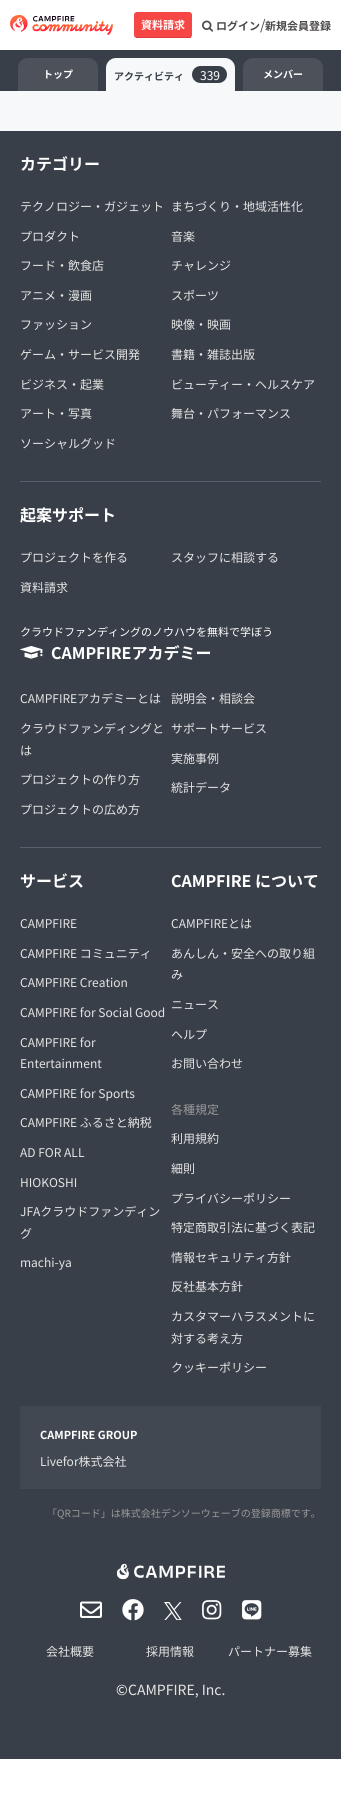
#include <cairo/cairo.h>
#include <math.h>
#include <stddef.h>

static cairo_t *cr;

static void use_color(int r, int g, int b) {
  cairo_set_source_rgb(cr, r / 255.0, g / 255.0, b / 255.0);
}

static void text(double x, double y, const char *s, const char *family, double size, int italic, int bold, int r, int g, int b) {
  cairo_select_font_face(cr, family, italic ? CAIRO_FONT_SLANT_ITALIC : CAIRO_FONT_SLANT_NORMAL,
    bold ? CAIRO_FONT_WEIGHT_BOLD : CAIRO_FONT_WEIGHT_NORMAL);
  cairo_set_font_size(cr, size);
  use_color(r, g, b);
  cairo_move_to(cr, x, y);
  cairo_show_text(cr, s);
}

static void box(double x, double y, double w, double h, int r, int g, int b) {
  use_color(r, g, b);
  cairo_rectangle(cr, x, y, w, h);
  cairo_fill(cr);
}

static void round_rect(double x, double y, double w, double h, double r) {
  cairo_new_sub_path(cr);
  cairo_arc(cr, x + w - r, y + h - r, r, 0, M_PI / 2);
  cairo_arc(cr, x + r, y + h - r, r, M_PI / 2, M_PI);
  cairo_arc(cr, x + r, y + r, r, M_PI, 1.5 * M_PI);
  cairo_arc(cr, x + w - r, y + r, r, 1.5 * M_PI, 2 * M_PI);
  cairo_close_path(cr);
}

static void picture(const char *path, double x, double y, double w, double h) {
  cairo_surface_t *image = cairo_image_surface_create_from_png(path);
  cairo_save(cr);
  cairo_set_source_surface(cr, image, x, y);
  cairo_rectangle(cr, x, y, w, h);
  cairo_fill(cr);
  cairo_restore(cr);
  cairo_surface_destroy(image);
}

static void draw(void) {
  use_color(255, 255, 255);
  cairo_paint(cr);
  picture("img_01.png", 10, 15, 103, 20);
  use_color(246, 71, 68);
  round_rect(134, 12, 58, 26, 3);
  cairo_fill(cr);
  box(136, 37, 55, 1, 225, 58, 67);
  picture("img_02.png", 202, 20, 12, 12);
  box(0, 91, 341, 40, 246, 248, 250);
  box(0, 50, 341, 41, 57, 63, 72);
  use_color(77, 82, 90);
  cairo_new_path(cr);
  cairo_move_to(cr, 28, 58);
  cairo_line_to(cr, 88, 58);
  cairo_curve_to(cr, 93.5, 58, 98, 62.5, 98, 68);
  cairo_line_to(cr, 98, 91);
  cairo_line_to(cr, 18, 91);
  cairo_line_to(cr, 18, 68);
  cairo_curve_to(cr, 18, 62.5, 22.5, 58, 28, 58);
  cairo_close_path(cr);
  cairo_fill(cr);
  use_color(246, 248, 250);
  cairo_new_path(cr);
  cairo_move_to(cr, 116, 58);
  cairo_line_to(cr, 225, 58);
  cairo_curve_to(cr, 230.5, 58, 235, 62.5, 235, 68);
  cairo_line_to(cr, 235, 91);
  cairo_line_to(cr, 106, 91);
  cairo_line_to(cr, 106, 68);
  cairo_curve_to(cr, 106, 62.5, 110.5, 58, 116, 58);
  cairo_close_path(cr);
  cairo_fill(cr);
  use_color(57, 63, 72);
  round_rect(192, 66, 35, 17, 8.5);
  cairo_fill(cr);
  use_color(77, 82, 90);
  cairo_new_path(cr);
  cairo_move_to(cr, 253, 58);
  cairo_line_to(cr, 313, 58);
  cairo_curve_to(cr, 318.5, 58, 323, 62.5, 323, 68);
  cairo_line_to(cr, 323, 91);
  cairo_line_to(cr, 243, 91);
  cairo_line_to(cr, 243, 68);
  cairo_curve_to(cr, 243, 62.5, 247.5, 58, 253, 58);
  cairo_close_path(cr);
  cairo_fill(cr);
  box(0, 131, 341, 1628, 57, 63, 72);
  box(20, 481, 301, 1, 86, 96, 110);
  picture("img_03.png", 20, 646, 23, 13);
  box(20, 847, 301, 1, 86, 96, 110);
  box(20, 1406, 301, 83, 66, 72, 82);
  picture("img_04.png", 116, 1563, 109, 17);
  picture("img_05.png", 80, 1601, 22, 17);
  picture("img_06.png", 122, 1599, 22, 22);
  picture("img_07.png", 164, 1602, 18, 18);
  picture("img_08.png", 202, 1600, 20, 20);
  picture("img_09.png", 242, 1600, 20, 20);
  text(141, 29, "資料請求", "Noto Sans JP", 11, 0, 1, 255, 255, 255);
  text(216, 30, "ログイン", "Noto Sans JP", 11, 0, 1, 77, 74, 74);
  text(260, 30, "/", "Noto Sans JP", 14, 0, 0, 77, 74, 74);
  text(265, 30, "新規会員登録", "Noto Sans JP", 11, 0, 1, 77, 74, 74);
  text(43, 78, "トップ", "Noto Sans JP", 10, 0, 1, 255, 255, 255);
  text(114, 80, "アクティビティ", "Noto Sans JP", 10, 0, 1, 57, 63, 72);
  text(200, 80, "339", "Noto Sans JP", 12, 0, 0, 255, 255, 255);
  text(263, 78, "メンバー", "Noto Sans JP", 10, 0, 1, 255, 255, 255);
  text(20, 170, "カテゴリー", "Noto Sans JP", 16, 0, 1, 255, 255, 255);
  text(20, 211, "テクノロジー・ガジェット", "Noto Sans JP", 12, 0, 0, 228, 228, 228);
  text(20, 241, "プロダクト", "Noto Sans JP", 12, 0, 0, 228, 228, 228);
  text(20, 270, "フード・飲食店", "Noto Sans JP", 12, 0, 0, 228, 228, 228);
  text(20, 300, "アニメ・漫画", "Noto Sans JP", 12, 0, 0, 228, 228, 228);
  text(20, 329, "ファッション", "Noto Sans JP", 12, 0, 0, 228, 228, 228);
  text(20, 359, "ゲーム・サービス開発", "Noto Sans JP", 12, 0, 0, 228, 228, 228);
  text(20, 389, "ビジネス・起業", "Noto Sans JP", 12, 0, 0, 228, 228, 228);
  text(20, 418, "アート・写真", "Noto Sans JP", 12, 0, 0, 228, 228, 228);
  text(20, 448, "ソーシャルグッド", "Noto Sans JP", 12, 0, 0, 228, 228, 228);
  text(171, 211, "まちづくり・地域活性化", "Noto Sans JP", 12, 0, 0, 228, 228, 228);
  text(171, 241, "音楽", "Noto Sans JP", 12, 0, 0, 228, 228, 228);
  text(171, 270, "チャレンジ", "Noto Sans JP", 12, 0, 0, 228, 228, 228);
  text(171, 300, "スポーツ", "Noto Sans JP", 12, 0, 0, 228, 228, 228);
  text(171, 329, "映像・映画", "Noto Sans JP", 12, 0, 0, 228, 228, 228);
  text(171, 359, "書籍・雑誌出版", "Noto Sans JP", 12, 0, 0, 228, 228, 228);
  text(171, 389, "ビューティー・ヘルスケア", "Noto Sans JP", 12, 0, 0, 228, 228, 228);
  text(171, 418, "舞台・パフォーマンス", "Noto Sans JP", 12, 0, 0, 228, 228, 228);
  text(20, 521, "起案サポート", "Noto Sans JP", 16, 0, 1, 255, 255, 255);
  text(20, 562, "プロジェクトを作る", "Noto Sans JP", 12, 0, 0, 228, 228, 228);
  text(20, 592, "資料請求", "Noto Sans JP", 12, 0, 0, 228, 228, 228);
  text(171, 562, "スタッフに相談する", "Noto Sans JP", 12, 0, 0, 228, 228, 228);
  text(20, 636, "クラウドファンディングのノウハウを無料で学ぼう", "Noto Sans JP", 11, 0, 0, 255, 255, 255);
  text(51, 659, "CAMPFIREアカデミー", "Noto Sans JP", 16, 0, 1, 255, 255, 255);
  text(20, 703, "CAMPFIREアカデミーとは", "Noto Sans JP", 12, 0, 0, 228, 228, 228);
  text(20, 733, "クラウドファンディングと", "Noto Sans JP", 12, 0, 0, 228, 228, 228);
  text(20, 755, "は", "Noto Sans JP", 12, 0, 0, 228, 228, 228);
  text(20, 784, "プロジェクトの作り方", "Noto Sans JP", 12, 0, 0, 228, 228, 228);
  text(20, 814, "プロジェクトの広め方", "Noto Sans JP", 12, 0, 0, 228, 228, 228);
  text(171, 703, "説明会・相談会", "Noto Sans JP", 12, 0, 0, 228, 228, 228);
  text(171, 733, "サポートサービス", "Noto Sans JP", 12, 0, 0, 228, 228, 228);
  text(171, 763, "実施事例", "Noto Sans JP", 12, 0, 0, 228, 228, 228);
  text(171, 792, "統計データ", "Noto Sans JP", 12, 0, 0, 228, 228, 228);
  text(20, 887, "サービス", "Noto Sans JP", 16, 0, 1, 255, 255, 255);
  text(20, 928, "CAMPFIRE", "Noto Sans JP", 12, 0, 0, 228, 228, 228);
  text(20, 958, "CAMPFIRE コミュニティ", "Noto Sans JP", 12, 0, 0, 228, 228, 228);
  text(20, 987, "CAMPFIRE Creation", "Noto Sans JP", 12, 0, 0, 228, 228, 228);
  text(20, 1017, "CAMPFIRE for Social Good", "Noto Sans JP", 12, 0, 0, 228, 228, 228);
  text(20, 1047, "CAMPFIRE for", "Noto Sans JP", 12, 0, 0, 228, 228, 228);
  text(20, 1068, "Entertainment", "Noto Sans JP", 12, 0, 0, 228, 228, 228);
  text(20, 1098, "CAMPFIRE for Sports", "Noto Sans JP", 12, 0, 0, 228, 228, 228);
  text(20, 1127, "CAMPFIRE ふるさと納税", "Noto Sans JP", 12, 0, 0, 228, 228, 228);
  text(20, 1157, "AD FOR ALL", "Noto Sans JP", 12, 0, 0, 228, 228, 228);
  text(20, 1187, "HIOKOSHI", "Noto Sans JP", 12, 0, 0, 228, 228, 228);
  text(20, 1216, "JFAクラウドファンディン", "Noto Sans JP", 12, 0, 0, 228, 228, 228);
  text(20, 1238, "グ", "Noto Sans JP", 12, 0, 0, 228, 228, 228);
  text(20, 1267, "machi-ya", "Noto Sans JP", 12, 0, 0, 228, 228, 228);
  text(171, 887, "CAMPFIRE について", "Noto Sans JP", 16, 0, 1, 255, 255, 255);
  text(171, 928, "CAMPFIREとは", "Noto Sans JP", 12, 0, 0, 228, 228, 228);
  text(171, 958, "あんしん・安全への取り組", "Noto Sans JP", 12, 0, 0, 228, 228, 228);
  text(171, 979, "み", "Noto Sans JP", 12, 0, 0, 228, 228, 228);
  text(171, 1009, "ニュース", "Noto Sans JP", 12, 0, 0, 228, 228, 228);
  text(171, 1039, "ヘルプ", "Noto Sans JP", 12, 0, 0, 228, 228, 228);
  text(171, 1068, "お問い合わせ", "Noto Sans JP", 12, 0, 0, 228, 228, 228);
  text(171, 1114, "各種規定", "Noto Sans JP", 12, 0, 0, 153, 153, 153);
  text(171, 1143, "利用規約", "Noto Sans JP", 12, 0, 0, 228, 228, 228);
  text(171, 1173, "細則", "Noto Sans JP", 12, 0, 0, 228, 228, 228);
  text(171, 1203, "プライバシーポリシー", "Noto Sans JP", 12, 0, 0, 228, 228, 228);
  text(171, 1232, "特定商取引法に基づく表記", "Noto Sans JP", 12, 0, 0, 228, 228, 228);
  text(171, 1262, "情報セキュリティ方針", "Noto Sans JP", 12, 0, 0, 228, 228, 228);
  text(171, 1291, "反社基本方針", "Noto Sans JP", 12, 0, 0, 228, 228, 228);
  text(171, 1321, "カスタマーハラスメントに", "Noto Sans JP", 12, 0, 0, 228, 228, 228);
  text(171, 1343, "対する考え方", "Noto Sans JP", 12, 0, 0, 228, 228, 228);
  text(171, 1372, "クッキーポリシー", "Noto Sans JP", 12, 0, 0, 228, 228, 228);
  text(40, 1439, "CAMPFIRE GROUP", "Noto Sans JP", 11, 0, 1, 255, 255, 255);
  text(40, 1466, "Livefor株式会社", "Noto Sans JP", 12, 0, 0, 228, 228, 228);
  text(47, 1517, "「QRコード」は株式会社デンソーウェーブの登録商標です。", "Noto Sans JP", 10, 0, 0, 153, 153, 153);
  text(46, 1656, "会社概要", "Noto Sans JP", 12, 0, 0, 228, 228, 228);
  text(146, 1656, "採用情報", "Noto Sans JP", 12, 0, 0, 228, 228, 228);
  text(228, 1656, "パートナー募集", "Noto Sans JP", 12, 0, 0, 228, 228, 228);
  text(116, 1695, "©", "Noto Sans JP", 14, 0, 0, 255, 255, 255);
  text(128, 1695, "CAMPFIRE, Inc.", "Noto Sans JP", 14, 0, 0, 228, 228, 228);
}

int main(void) {
  cairo_surface_t *surface = cairo_image_surface_create(CAIRO_FORMAT_RGB24, 341, 1795);
  cr = cairo_create(surface);
  cairo_font_options_t *options = cairo_font_options_create();
  cairo_font_options_set_hint_metrics(options, CAIRO_HINT_METRICS_OFF);
  cairo_font_options_set_hint_style(options, CAIRO_HINT_STYLE_NONE);
  cairo_set_font_options(cr, options);
  cairo_set_miter_limit(cr, 4);
  draw();
  cairo_surface_write_to_png(surface, "out.png");
  cairo_font_options_destroy(options);
  cairo_destroy(cr);
  cairo_surface_destroy(surface);
  return 0;
}
